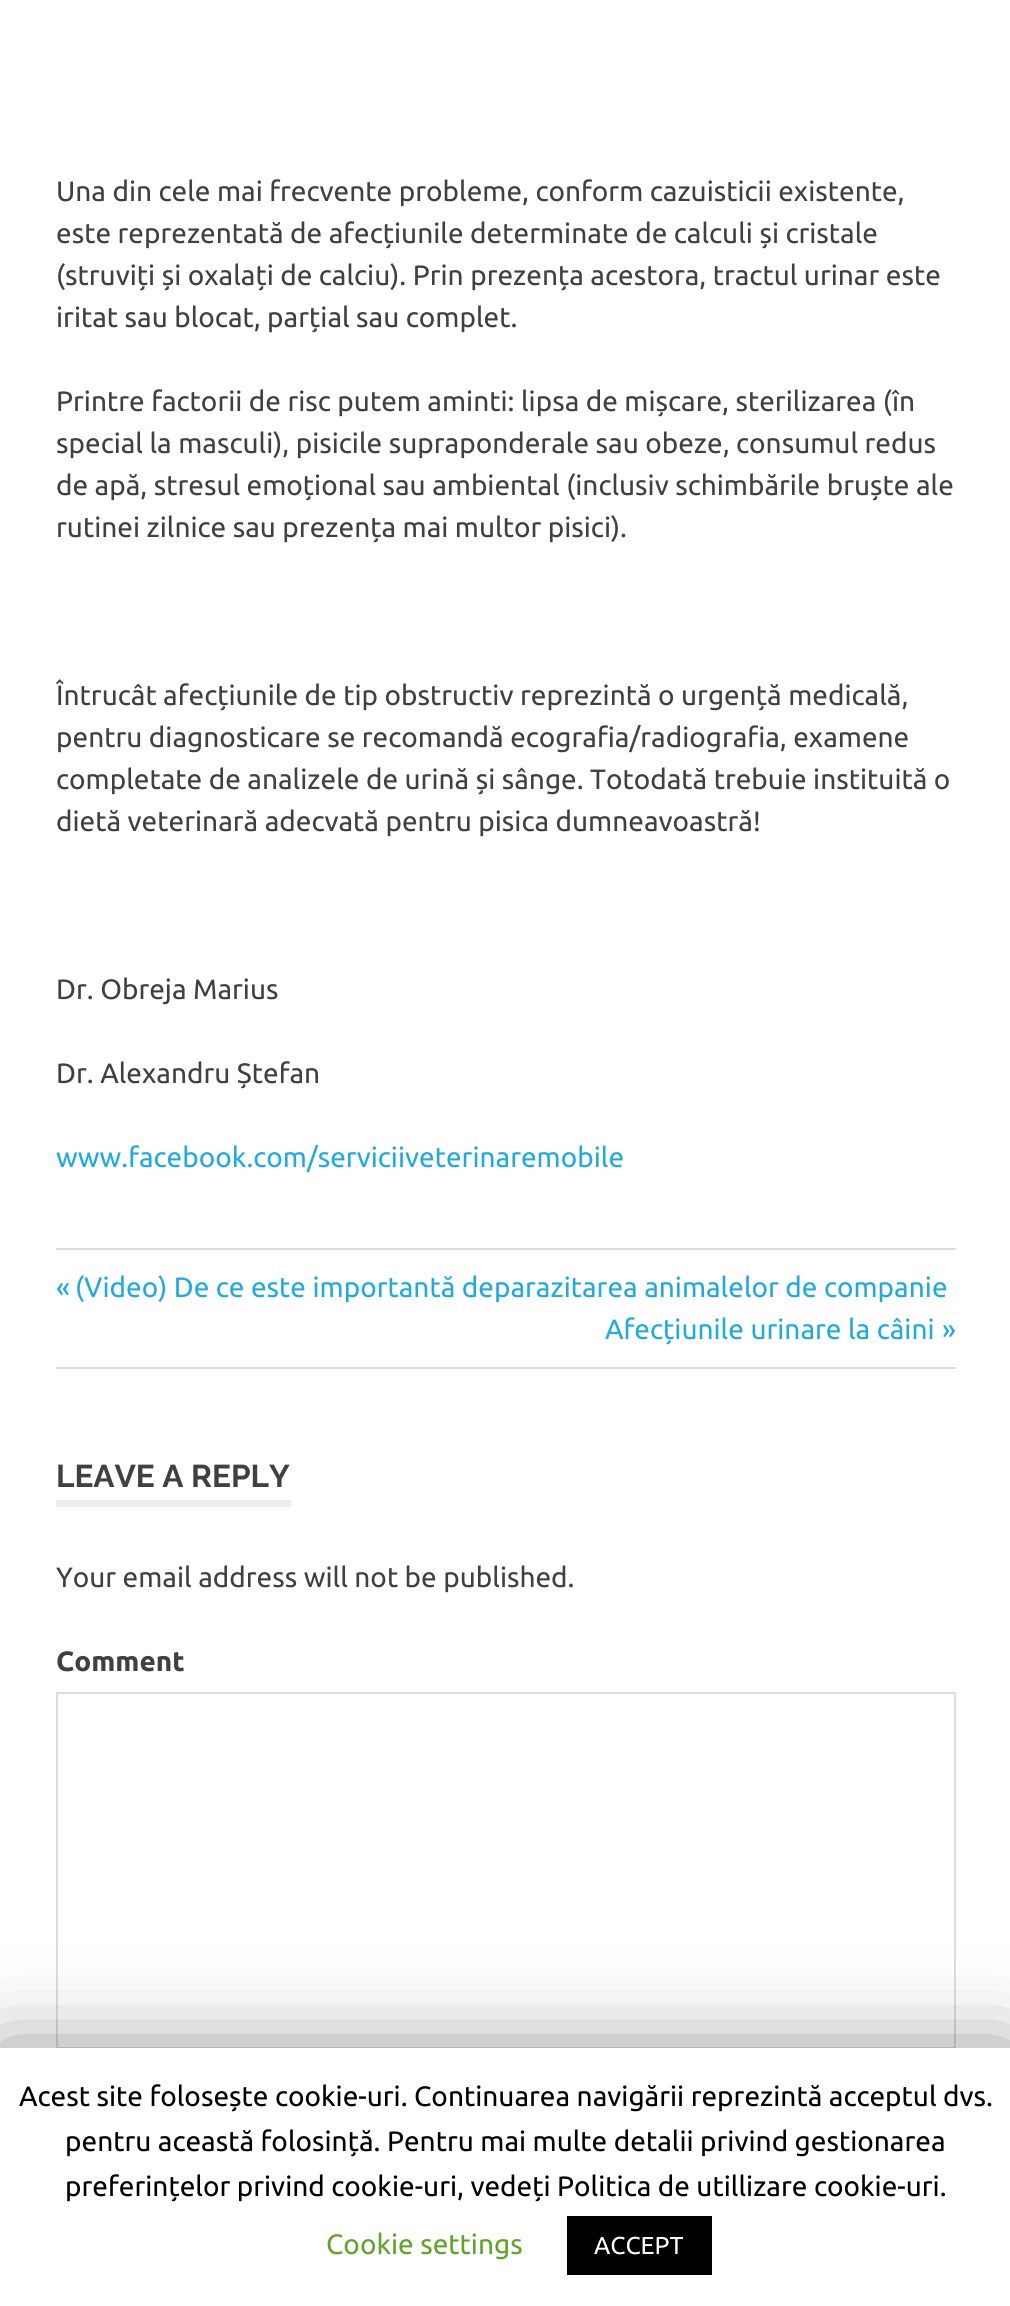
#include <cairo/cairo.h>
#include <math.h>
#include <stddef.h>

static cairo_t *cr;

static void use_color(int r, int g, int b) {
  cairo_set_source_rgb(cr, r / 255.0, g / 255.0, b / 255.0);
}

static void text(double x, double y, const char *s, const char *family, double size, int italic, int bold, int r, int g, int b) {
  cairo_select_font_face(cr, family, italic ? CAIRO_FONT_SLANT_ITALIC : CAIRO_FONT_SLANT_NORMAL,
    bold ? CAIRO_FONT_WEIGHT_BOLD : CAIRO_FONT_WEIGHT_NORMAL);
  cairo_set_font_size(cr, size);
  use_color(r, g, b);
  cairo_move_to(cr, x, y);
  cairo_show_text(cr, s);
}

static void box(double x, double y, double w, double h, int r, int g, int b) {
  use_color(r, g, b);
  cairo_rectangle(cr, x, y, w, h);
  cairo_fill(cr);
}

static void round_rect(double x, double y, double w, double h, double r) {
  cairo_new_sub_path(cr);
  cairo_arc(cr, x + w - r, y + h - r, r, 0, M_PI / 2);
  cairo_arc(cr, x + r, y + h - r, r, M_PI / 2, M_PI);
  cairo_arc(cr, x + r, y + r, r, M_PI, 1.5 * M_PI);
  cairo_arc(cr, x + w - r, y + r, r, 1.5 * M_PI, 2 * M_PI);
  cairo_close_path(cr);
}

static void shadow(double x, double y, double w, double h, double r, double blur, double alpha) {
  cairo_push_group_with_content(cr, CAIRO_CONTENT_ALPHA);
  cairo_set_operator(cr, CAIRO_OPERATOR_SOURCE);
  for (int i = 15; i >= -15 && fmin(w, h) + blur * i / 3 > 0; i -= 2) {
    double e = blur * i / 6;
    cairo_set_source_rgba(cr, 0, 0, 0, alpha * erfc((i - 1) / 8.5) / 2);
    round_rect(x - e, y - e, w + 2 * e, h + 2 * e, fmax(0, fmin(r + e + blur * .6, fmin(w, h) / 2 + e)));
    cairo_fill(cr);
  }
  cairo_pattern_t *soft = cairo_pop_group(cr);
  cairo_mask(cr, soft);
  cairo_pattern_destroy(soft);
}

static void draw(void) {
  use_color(255, 255, 255);
  cairo_paint(cr);
  box(56, 1248, 900, 2, 221, 221, 221);
  box(56, 1367, 900, 2, 221, 221, 221);
  box(56, 1500, 235, 7, 238, 238, 238);
  cairo_rectangle(cr, 57, 1693, 898, 355);
  use_color(221, 221, 221);
  cairo_stroke(cr);
  use_color(0, 0, 0);
  shadow(0, 2056, 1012, 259, 0, 44, 0.5);
  box(0, 2048, 1010, 258, 255, 255, 255);
  box(567, 2216, 145, 59, 0, 0, 0);
  text(56, 201, "Una din cele mai frecvente probleme, conform cazuisticii existente,", "Ubuntu", 28, 0, 0, 64, 64, 64);
  text(56, 243, "este reprezentată de afecțiunile determinate de calculi și cristale", "Ubuntu", 28, 0, 0, 64, 64, 64);
  text(56, 285, "(struviți și oxalați de calciu). Prin prezența acestora, tractul urinar este", "Ubuntu", 28, 0, 0, 64, 64, 64);
  text(56, 327, "iritat sau blocat, parțial sau complet.", "Ubuntu", 28, 0, 0, 64, 64, 64);
  text(56, 411, "Printre factorii de risc putem aminti: lipsa de mișcare, sterilizarea (în", "Ubuntu", 28, 0, 0, 64, 64, 64);
  text(56, 453, "special la masculi), pisicile supraponderale sau obeze, consumul redus", "Ubuntu", 28, 0, 0, 64, 64, 64);
  text(56, 495, "de apă, stresul emoțional sau ambiental (inclusiv schimbările bruște ale", "Ubuntu", 28, 0, 0, 64, 64, 64);
  text(56, 537, "rutinei zilnice sau prezența mai multor pisici).", "Ubuntu", 28, 0, 0, 64, 64, 64);
  text(56, 705, "Întrucât afecțiunile de tip obstructiv reprezintă o urgență medicală,", "Ubuntu", 28, 0, 0, 64, 64, 64);
  text(56, 747, "pentru diagnosticare se recomandă ecografia/radiografia, examene", "Ubuntu", 28, 0, 0, 64, 64, 64);
  text(56, 789, "completate de analizele de urină și sânge. Totodată trebuie instituită o", "Ubuntu", 28, 0, 0, 64, 64, 64);
  text(56, 831, "dietă veterinară adecvată pentru pisica dumneavoastră!", "Ubuntu", 28, 0, 0, 64, 64, 64);
  text(56, 999, "Dr. Obreja Marius", "Ubuntu", 28, 0, 0, 64, 64, 64);
  text(56, 1083, "Dr. Alexandru Ștefan", "Ubuntu", 28, 0, 0, 64, 64, 64);
  text(56, 1167, "www.facebook.com/serviciiveterinaremobile", "Ubuntu", 28, 0, 0, 34, 170, 221);
  text(56, 1297, "«", "Ubuntu", 28, 0, 0, 34, 170, 221);
  text(75, 1297, "(Video) De ce este importantă deparazitarea animalelor de companie", "Ubuntu", 28, 0, 0, 34, 170, 221);
  text(605, 1339, "Afecțiunile urinare la câini", "Ubuntu", 28, 0, 0, 34, 170, 221);
  text(942, 1339, "»", "Ubuntu", 28, 0, 0, 34, 170, 221);
  text(56, 1487, "LEAVE A REPLY", "Raleway", 31.5, 0, 1, 64, 64, 64);
  text(56, 1587, "Your email address will not be published.", "Ubuntu", 28, 0, 0, 64, 64, 64);
  text(56, 1671, "Comment", "Ubuntu", 28, 0, 1, 64, 64, 64);
  text(19, 2106, "Acest site folosește cookie-uri. Continuarea navigării reprezintă acceptul dvs.", "Ubuntu", 28, 0, 0, 0, 0, 0);
  text(65, 2151, "pentru această folosință. Pentru mai multe detalii privind gestionarea", "Ubuntu", 28, 0, 0, 0, 0, 0);
  text(65, 2196, "preferințelor privind cookie-uri, vedeți Politica de utillizare cookie-uri.", "Ubuntu", 28, 0, 0, 0, 0, 0);
  text(326, 2254, "Cookie settings", "Ubuntu", 28, 0, 0, 98, 163, 41);
  text(594, 2254, "ACCEPT", "Ubuntu", 24.5, 0, 0, 255, 255, 255);
}

int main(void) {
  cairo_surface_t *surface = cairo_image_surface_create(CAIRO_FORMAT_RGB24, 1010, 2306);
  cr = cairo_create(surface);
  cairo_font_options_t *options = cairo_font_options_create();
  cairo_font_options_set_hint_metrics(options, CAIRO_HINT_METRICS_OFF);
  cairo_font_options_set_hint_style(options, CAIRO_HINT_STYLE_NONE);
  cairo_set_font_options(cr, options);
  cairo_set_miter_limit(cr, 4);
  draw();
  cairo_surface_write_to_png(surface, "out.png");
  cairo_font_options_destroy(options);
  cairo_destroy(cr);
  cairo_surface_destroy(surface);
  return 0;
}
